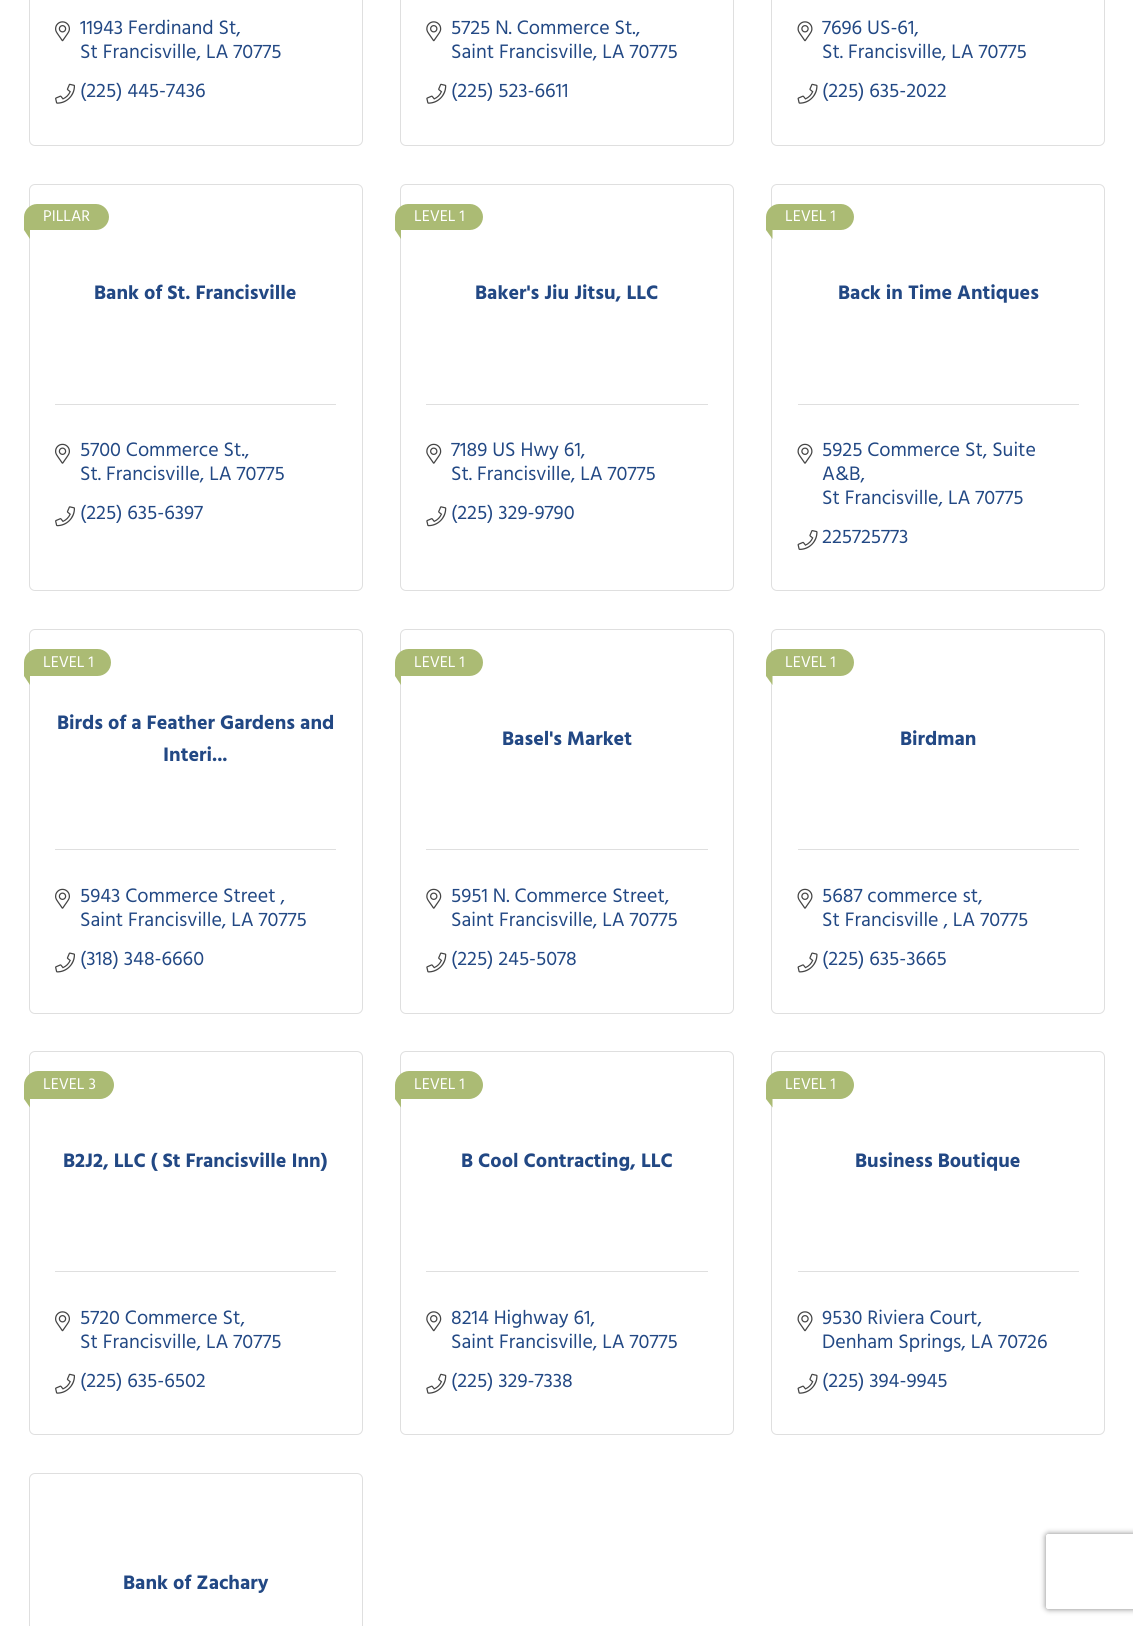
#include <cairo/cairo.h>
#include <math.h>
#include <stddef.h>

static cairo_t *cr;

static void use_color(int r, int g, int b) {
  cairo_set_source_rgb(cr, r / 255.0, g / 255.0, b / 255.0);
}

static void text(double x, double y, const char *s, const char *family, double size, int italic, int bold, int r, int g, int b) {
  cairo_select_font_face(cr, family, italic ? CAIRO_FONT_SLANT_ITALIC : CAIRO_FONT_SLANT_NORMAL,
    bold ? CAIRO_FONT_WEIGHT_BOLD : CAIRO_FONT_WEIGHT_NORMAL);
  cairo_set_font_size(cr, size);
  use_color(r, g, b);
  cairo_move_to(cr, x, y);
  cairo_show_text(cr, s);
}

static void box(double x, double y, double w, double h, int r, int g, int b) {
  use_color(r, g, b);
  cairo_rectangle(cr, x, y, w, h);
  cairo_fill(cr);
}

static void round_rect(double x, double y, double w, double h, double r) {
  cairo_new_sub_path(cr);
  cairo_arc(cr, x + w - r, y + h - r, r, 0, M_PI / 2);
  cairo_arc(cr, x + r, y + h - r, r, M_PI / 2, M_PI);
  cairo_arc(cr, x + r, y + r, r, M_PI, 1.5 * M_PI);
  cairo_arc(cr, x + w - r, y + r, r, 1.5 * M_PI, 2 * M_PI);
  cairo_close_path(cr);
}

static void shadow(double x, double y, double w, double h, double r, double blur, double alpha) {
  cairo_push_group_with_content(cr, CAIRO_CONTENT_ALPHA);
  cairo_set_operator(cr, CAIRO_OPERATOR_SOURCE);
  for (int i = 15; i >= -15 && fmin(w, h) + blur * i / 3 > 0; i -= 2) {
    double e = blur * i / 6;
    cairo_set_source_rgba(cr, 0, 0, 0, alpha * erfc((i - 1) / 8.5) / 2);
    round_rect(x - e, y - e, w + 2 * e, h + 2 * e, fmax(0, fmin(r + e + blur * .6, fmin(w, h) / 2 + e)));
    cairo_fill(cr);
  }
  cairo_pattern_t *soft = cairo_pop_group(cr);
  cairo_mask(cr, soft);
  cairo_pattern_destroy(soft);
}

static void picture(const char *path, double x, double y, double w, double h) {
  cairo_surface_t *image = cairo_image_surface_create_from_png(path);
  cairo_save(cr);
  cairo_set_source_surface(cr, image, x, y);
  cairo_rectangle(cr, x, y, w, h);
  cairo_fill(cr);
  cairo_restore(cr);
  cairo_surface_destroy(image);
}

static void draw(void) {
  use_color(255, 255, 255);
  cairo_paint(cr);
  round_rect(29.5, -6.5, 333, 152, 5.5);
  use_color(223, 223, 223);
  cairo_set_line_width(cr, 1);
  cairo_stroke(cr);
  picture("img_01.png", 55, 21, 15, 21);
  picture("img_02.png", 55, 83, 20, 21);
  round_rect(400.5, -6.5, 333, 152, 5.5);
  cairo_stroke(cr);
  picture("img_03.png", 426, 21, 16, 21);
  picture("img_04.png", 426, 83, 21, 21);
  round_rect(771.5, -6.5, 333, 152, 5.5);
  cairo_stroke(cr);
  picture("img_05.png", 797, 21, 16, 21);
  picture("img_06.png", 797, 83, 21, 21);
  round_rect(29.5, 184.5, 333, 406, 5.5);
  cairo_stroke(cr);
  use_color(171, 187, 116);
  cairo_new_path(cr);
  cairo_move_to(cr, 37, 204);
  cairo_line_to(cr, 96, 204);
  cairo_curve_to(cr, 103, 204, 109, 210, 109, 217);
  cairo_curve_to(cr, 109, 224, 103, 230, 96, 230);
  cairo_line_to(cr, 24.5, 230);
  cairo_curve_to(cr, 24, 230, 24, 230, 24, 229.5);
  cairo_line_to(cr, 24, 217);
  cairo_curve_to(cr, 24, 210, 30, 204, 37, 204);
  cairo_close_path(cr);
  cairo_fill(cr);
  cairo_new_path(cr);
  cairo_move_to(cr, 30, 221);
  cairo_line_to(cr, 30, 239);
  cairo_line_to(cr, 24, 230);
  cairo_close_path(cr);
  cairo_fill(cr);
  box(55, 404, 281, 1, 223, 223, 223);
  picture("img_07.png", 55, 443, 15, 21);
  picture("img_08.png", 55, 506, 20, 21);
  round_rect(400.5, 184.5, 333, 406, 5.5);
  cairo_stroke(cr);
  use_color(171, 187, 116);
  cairo_new_path(cr);
  cairo_move_to(cr, 408, 204);
  cairo_line_to(cr, 470, 204);
  cairo_curve_to(cr, 477, 204, 483, 210, 483, 217);
  cairo_curve_to(cr, 483, 224, 477, 230, 470, 230);
  cairo_line_to(cr, 395.5, 230);
  cairo_curve_to(cr, 395, 230, 395, 230, 395, 229.5);
  cairo_line_to(cr, 395, 217);
  cairo_curve_to(cr, 395, 210, 401, 204, 408, 204);
  cairo_close_path(cr);
  cairo_fill(cr);
  cairo_new_path(cr);
  cairo_move_to(cr, 401, 221);
  cairo_line_to(cr, 401, 239);
  cairo_line_to(cr, 395, 230);
  cairo_close_path(cr);
  cairo_fill(cr);
  box(426, 404, 282, 1, 223, 223, 223);
  picture("img_09.png", 426, 443, 16, 21);
  picture("img_10.png", 426, 506, 21, 21);
  round_rect(771.5, 184.5, 333, 406, 5.5);
  cairo_stroke(cr);
  use_color(171, 187, 116);
  cairo_new_path(cr);
  cairo_move_to(cr, 779, 204);
  cairo_line_to(cr, 841, 204);
  cairo_curve_to(cr, 848, 204, 854, 210, 854, 217);
  cairo_curve_to(cr, 854, 224, 848, 230, 841, 230);
  cairo_line_to(cr, 766.5, 230);
  cairo_curve_to(cr, 766, 230, 766, 230, 766, 229.5);
  cairo_line_to(cr, 766, 217);
  cairo_curve_to(cr, 766, 210, 772, 204, 779, 204);
  cairo_close_path(cr);
  cairo_fill(cr);
  cairo_new_path(cr);
  cairo_move_to(cr, 772.5, 221);
  cairo_line_to(cr, 772.5, 239);
  cairo_line_to(cr, 766, 230);
  cairo_close_path(cr);
  cairo_fill(cr);
  box(798, 404, 281, 1, 223, 223, 223);
  picture("img_11.png", 797, 443, 16, 21);
  picture("img_12.png", 797, 530, 21, 20);
  round_rect(29.5, 629.5, 333, 384, 5.5);
  cairo_stroke(cr);
  use_color(171, 187, 116);
  cairo_new_path(cr);
  cairo_move_to(cr, 37.5, 649);
  cairo_line_to(cr, 97.5, 649);
  cairo_curve_to(cr, 105, 649, 111, 655, 111, 662.5);
  cairo_curve_to(cr, 111, 670, 105, 676, 97.5, 676);
  cairo_line_to(cr, 24.5, 676);
  cairo_curve_to(cr, 24, 676, 24, 676, 24, 675.5);
  cairo_line_to(cr, 24, 662.5);
  cairo_curve_to(cr, 24, 655, 30, 649, 37.5, 649);
  cairo_close_path(cr);
  cairo_fill(cr);
  cairo_new_path(cr);
  cairo_move_to(cr, 30, 667.5);
  cairo_line_to(cr, 30, 685);
  cairo_line_to(cr, 24, 676);
  cairo_close_path(cr);
  cairo_fill(cr);
  box(55, 849, 281, 1, 223, 223, 223);
  picture("img_07.png", 55, 888, 15, 21);
  picture("img_13.png", 55, 952, 20, 21);
  round_rect(400.5, 629.5, 333, 384, 5.5);
  cairo_stroke(cr);
  use_color(171, 187, 116);
  cairo_new_path(cr);
  cairo_move_to(cr, 408.5, 649);
  cairo_line_to(cr, 469.5, 649);
  cairo_curve_to(cr, 477, 649, 483, 655, 483, 662.5);
  cairo_curve_to(cr, 483, 670, 477, 676, 469.5, 676);
  cairo_line_to(cr, 395.5, 676);
  cairo_curve_to(cr, 395, 676, 395, 676, 395, 675.5);
  cairo_line_to(cr, 395, 662.5);
  cairo_curve_to(cr, 395, 655, 401, 649, 408.5, 649);
  cairo_close_path(cr);
  cairo_fill(cr);
  cairo_new_path(cr);
  cairo_move_to(cr, 401, 667.5);
  cairo_line_to(cr, 401, 685);
  cairo_line_to(cr, 395, 676);
  cairo_close_path(cr);
  cairo_fill(cr);
  box(426, 849, 282, 1, 223, 223, 223);
  picture("img_09.png", 426, 888, 16, 21);
  picture("img_14.png", 426, 952, 21, 21);
  round_rect(771.5, 629.5, 333, 384, 5.5);
  cairo_stroke(cr);
  use_color(171, 187, 116);
  cairo_new_path(cr);
  cairo_move_to(cr, 779.5, 649);
  cairo_line_to(cr, 840.5, 649);
  cairo_curve_to(cr, 848, 649, 854, 655, 854, 662.5);
  cairo_curve_to(cr, 854, 670, 848, 676, 840.5, 676);
  cairo_line_to(cr, 766.5, 676);
  cairo_curve_to(cr, 766, 676, 766, 676, 766, 675.5);
  cairo_line_to(cr, 766, 662.5);
  cairo_curve_to(cr, 766, 655, 772, 649, 779.5, 649);
  cairo_close_path(cr);
  cairo_fill(cr);
  cairo_new_path(cr);
  cairo_move_to(cr, 772.5, 667.5);
  cairo_line_to(cr, 772.5, 685);
  cairo_line_to(cr, 766, 676);
  cairo_close_path(cr);
  cairo_fill(cr);
  box(798, 849, 281, 1, 223, 223, 223);
  picture("img_11.png", 797, 888, 16, 21);
  picture("img_15.png", 797, 952, 21, 21);
  round_rect(29.5, 1051.5, 333, 383, 5.5);
  cairo_stroke(cr);
  use_color(171, 187, 116);
  cairo_new_path(cr);
  cairo_move_to(cr, 38, 1071);
  cairo_line_to(cr, 100, 1071);
  cairo_curve_to(cr, 107.5, 1071, 114, 1077.5, 114, 1085);
  cairo_curve_to(cr, 114, 1092.5, 107.5, 1099, 100, 1099);
  cairo_line_to(cr, 24.5, 1099);
  cairo_curve_to(cr, 24, 1099, 24, 1099, 24, 1098.5);
  cairo_line_to(cr, 24, 1085);
  cairo_curve_to(cr, 24, 1077.5, 30.5, 1071, 38, 1071);
  cairo_close_path(cr);
  cairo_fill(cr);
  cairo_new_path(cr);
  cairo_move_to(cr, 30, 1090);
  cairo_line_to(cr, 30, 1107.5);
  cairo_line_to(cr, 24, 1099);
  cairo_close_path(cr);
  cairo_fill(cr);
  box(55, 1271, 281, 1, 223, 223, 223);
  picture("img_01.png", 55, 1311, 15, 21);
  picture("img_02.png", 55, 1373, 20, 21);
  round_rect(400.5, 1051.5, 333, 383, 5.5);
  cairo_stroke(cr);
  use_color(171, 187, 116);
  cairo_new_path(cr);
  cairo_move_to(cr, 409, 1071);
  cairo_line_to(cr, 469, 1071);
  cairo_curve_to(cr, 476.5, 1071, 483, 1077.5, 483, 1085);
  cairo_curve_to(cr, 483, 1092.5, 476.5, 1099, 469, 1099);
  cairo_line_to(cr, 395.5, 1099);
  cairo_curve_to(cr, 395, 1099, 395, 1099, 395, 1098.5);
  cairo_line_to(cr, 395, 1085);
  cairo_curve_to(cr, 395, 1077.5, 401.5, 1071, 409, 1071);
  cairo_close_path(cr);
  cairo_fill(cr);
  cairo_new_path(cr);
  cairo_move_to(cr, 401, 1090);
  cairo_line_to(cr, 401, 1107.5);
  cairo_line_to(cr, 395, 1099);
  cairo_close_path(cr);
  cairo_fill(cr);
  box(426, 1271, 282, 1, 223, 223, 223);
  picture("img_03.png", 426, 1311, 16, 21);
  picture("img_04.png", 426, 1373, 21, 21);
  round_rect(771.5, 1051.5, 333, 383, 5.5);
  cairo_stroke(cr);
  use_color(171, 187, 116);
  cairo_new_path(cr);
  cairo_move_to(cr, 780, 1071);
  cairo_line_to(cr, 840, 1071);
  cairo_curve_to(cr, 847.5, 1071, 854, 1077.5, 854, 1085);
  cairo_curve_to(cr, 854, 1092.5, 847.5, 1099, 840, 1099);
  cairo_line_to(cr, 766.5, 1099);
  cairo_curve_to(cr, 766, 1099, 766, 1099, 766, 1098.5);
  cairo_line_to(cr, 766, 1085);
  cairo_curve_to(cr, 766, 1077.5, 772.5, 1071, 780, 1071);
  cairo_close_path(cr);
  cairo_fill(cr);
  cairo_new_path(cr);
  cairo_move_to(cr, 772.5, 1090);
  cairo_line_to(cr, 772.5, 1107.5);
  cairo_line_to(cr, 766, 1099);
  cairo_close_path(cr);
  cairo_fill(cr);
  box(798, 1271, 281, 1, 223, 223, 223);
  picture("img_05.png", 797, 1311, 16, 21);
  picture("img_06.png", 797, 1373, 21, 21);
  round_rect(29.5, 1473.5, 333, 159, 5.5);
  cairo_stroke(cr);
  cairo_save(cr);
  cairo_set_fill_rule(cr, CAIRO_FILL_RULE_EVEN_ODD);
  cairo_new_path(cr);
  cairo_move_to(cr, 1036, 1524);
  cairo_line_to(cr, 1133, 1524);
  cairo_line_to(cr, 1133, 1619);
  cairo_line_to(cr, 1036, 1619);
  cairo_close_path(cr);
  cairo_move_to(cr, 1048.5, 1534);
  cairo_line_to(cr, 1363.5, 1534);
  cairo_curve_to(cr, 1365, 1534, 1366, 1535, 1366, 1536.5);
  cairo_line_to(cr, 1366, 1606.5);
  cairo_curve_to(cr, 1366, 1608, 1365, 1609, 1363.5, 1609);
  cairo_line_to(cr, 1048.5, 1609);
  cairo_curve_to(cr, 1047, 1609, 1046, 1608, 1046, 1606.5);
  cairo_line_to(cr, 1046, 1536.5);
  cairo_curve_to(cr, 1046, 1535, 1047, 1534, 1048.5, 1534);
  cairo_close_path(cr);
  cairo_clip(cr);
  use_color(128, 128, 128);
  shadow(1046, 1534, 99, 75, 2.5, 3, 1);
  cairo_restore(cr);
  text(80, 34, "11943 Ferdinand St,", "Hind", 20, 0, 0, 34, 72, 132);
  text(80, 58, "St Francisville, LA 70775", "Hind", 20, 0, 0, 34, 72, 132);
  text(80, 97, "(225) 445-7436", "Hind", 20, 0, 0, 34, 72, 132);
  text(451, 34, "5725 N. Commerce St.,", "Hind", 20, 0, 0, 34, 72, 132);
  text(451, 58, "Saint Francisville, LA 70775", "Hind", 20, 0, 0, 34, 72, 132);
  text(451, 97, "(225) 523-6611", "Hind", 20, 0, 0, 34, 72, 132);
  text(822, 34, "7696 US-61,", "Hind", 20, 0, 0, 34, 72, 132);
  text(822, 58, "St. Francisville, LA 70775", "Hind", 20, 0, 0, 34, 72, 132);
  text(822, 97, "(225) 635-2022", "Hind", 20, 0, 0, 34, 72, 132);
  text(43, 221, "PILLAR", "Hind", 16, 0, 0, 255, 255, 255);
  text(94, 299, "Bank of St. Francisville", "Hind", 20, 0, 1, 34, 72, 132);
  text(80, 456, "5700 Commerce St.,", "Hind", 20, 0, 0, 34, 72, 132);
  text(80, 480, "St. Francisville, LA 70775", "Hind", 20, 0, 0, 34, 72, 132);
  text(80, 519, "(225) 635-6397", "Hind", 20, 0, 0, 34, 72, 132);
  text(414, 221, "LEVEL 1", "Hind", 16, 0, 0, 255, 255, 255);
  text(475, 299, "Baker's Jiu Jitsu, LLC", "Hind", 20, 0, 1, 34, 72, 132);
  text(451, 456, "7189 US Hwy 61,", "Hind", 20, 0, 0, 34, 72, 132);
  text(451, 480, "St. Francisville, LA 70775", "Hind", 20, 0, 0, 34, 72, 132);
  text(451, 519, "(225) 329-9790", "Hind", 20, 0, 0, 34, 72, 132);
  text(785, 221, "LEVEL 1", "Hind", 16, 0, 0, 255, 255, 255);
  text(838, 299, "Back in Time Antiques", "Hind", 20, 0, 1, 34, 72, 132);
  text(822, 456, "5925 Commerce St, Suite", "Hind", 20, 0, 0, 34, 72, 132);
  text(822, 480, "A&B,", "Hind", 20, 0, 0, 34, 72, 132);
  text(822, 504, "St Francisville, LA 70775", "Hind", 20, 0, 0, 34, 72, 132);
  text(822, 543, "225725773", "Hind", 20, 0, 0, 34, 72, 132);
  text(43, 667, "LEVEL 1", "Hind", 16, 0, 0, 255, 255, 255);
  text(57, 729, "Birds of a Feather Gardens and", "Hind", 20, 0, 1, 34, 72, 132);
  text(163, 761, "Interi...", "Hind", 20, 0, 1, 34, 72, 132);
  text(80, 902, "5943 Commerce Street ,", "Hind", 20, 0, 0, 34, 72, 132);
  text(80, 926, "Saint Francisville, LA 70775", "Hind", 20, 0, 0, 34, 72, 132);
  text(80, 965, "(318) 348-6660", "Hind", 20, 0, 0, 34, 72, 132);
  text(414, 667, "LEVEL 1", "Hind", 16, 0, 0, 255, 255, 255);
  text(502, 745, "Basel's Market", "Hind", 20, 0, 1, 34, 72, 132);
  text(451, 902, "5951 N. Commerce Street,", "Hind", 20, 0, 0, 34, 72, 132);
  text(451, 926, "Saint Francisville, LA 70775", "Hind", 20, 0, 0, 34, 72, 132);
  text(451, 965, "(225) 245-5078", "Hind", 20, 0, 0, 34, 72, 132);
  text(785, 667, "LEVEL 1", "Hind", 16, 0, 0, 255, 255, 255);
  text(900, 745, "Birdman", "Hind", 20, 0, 1, 34, 72, 132);
  text(822, 902, "5687 commerce st,", "Hind", 20, 0, 0, 34, 72, 132);
  text(822, 926, "St Francisville , LA 70775", "Hind", 20, 0, 0, 34, 72, 132);
  text(822, 965, "(225) 635-3665", "Hind", 20, 0, 0, 34, 72, 132);
  text(43, 1089, "LEVEL 3", "Hind", 16, 0, 0, 255, 255, 255);
  text(63, 1167, "B2J2, LLC ( St Francisville Inn)", "Hind", 20, 0, 1, 34, 72, 132);
  text(80, 1324, "5720 Commerce St,", "Hind", 20, 0, 0, 34, 72, 132);
  text(80, 1348, "St Francisville, LA 70775", "Hind", 20, 0, 0, 34, 72, 132);
  text(80, 1387, "(225) 635-6502", "Hind", 20, 0, 0, 34, 72, 132);
  text(414, 1089, "LEVEL 1", "Hind", 16, 0, 0, 255, 255, 255);
  text(461, 1167, "B Cool Contracting, LLC", "Hind", 20, 0, 1, 34, 72, 132);
  text(451, 1324, "8214 Highway 61,", "Hind", 20, 0, 0, 34, 72, 132);
  text(451, 1348, "Saint Francisville, LA 70775", "Hind", 20, 0, 0, 34, 72, 132);
  text(451, 1387, "(225) 329-7338", "Hind", 20, 0, 0, 34, 72, 132);
  text(785, 1089, "LEVEL 1", "Hind", 16, 0, 0, 255, 255, 255);
  text(855, 1167, "Business Boutique", "Hind", 20, 0, 1, 34, 72, 132);
  text(822, 1324, "9530 Riviera Court,", "Hind", 20, 0, 0, 34, 72, 132);
  text(822, 1348, "Denham Springs, LA 70726", "Hind", 20, 0, 0, 34, 72, 132);
  text(822, 1387, "(225) 394-9945", "Hind", 20, 0, 0, 34, 72, 132);
  text(123, 1589, "Bank of Zachary", "Hind", 20, 0, 1, 34, 72, 132);
}

int main(void) {
  cairo_surface_t *surface = cairo_image_surface_create(CAIRO_FORMAT_RGB24, 1133, 1626);
  cr = cairo_create(surface);
  cairo_font_options_t *options = cairo_font_options_create();
  cairo_font_options_set_hint_metrics(options, CAIRO_HINT_METRICS_OFF);
  cairo_font_options_set_hint_style(options, CAIRO_HINT_STYLE_NONE);
  cairo_set_font_options(cr, options);
  cairo_set_miter_limit(cr, 4);
  draw();
  cairo_surface_write_to_png(surface, "out.png");
  cairo_font_options_destroy(options);
  cairo_destroy(cr);
  cairo_surface_destroy(surface);
  return 0;
}
